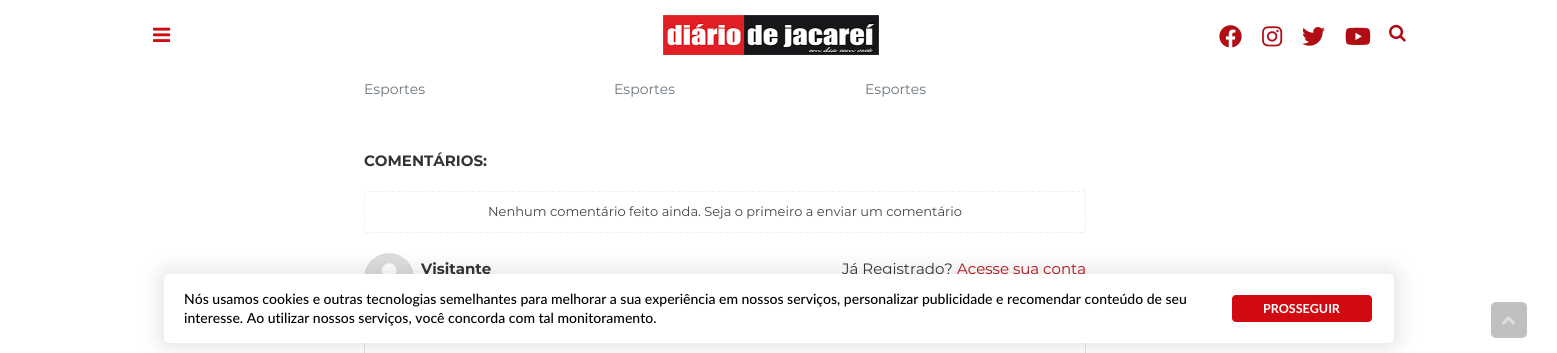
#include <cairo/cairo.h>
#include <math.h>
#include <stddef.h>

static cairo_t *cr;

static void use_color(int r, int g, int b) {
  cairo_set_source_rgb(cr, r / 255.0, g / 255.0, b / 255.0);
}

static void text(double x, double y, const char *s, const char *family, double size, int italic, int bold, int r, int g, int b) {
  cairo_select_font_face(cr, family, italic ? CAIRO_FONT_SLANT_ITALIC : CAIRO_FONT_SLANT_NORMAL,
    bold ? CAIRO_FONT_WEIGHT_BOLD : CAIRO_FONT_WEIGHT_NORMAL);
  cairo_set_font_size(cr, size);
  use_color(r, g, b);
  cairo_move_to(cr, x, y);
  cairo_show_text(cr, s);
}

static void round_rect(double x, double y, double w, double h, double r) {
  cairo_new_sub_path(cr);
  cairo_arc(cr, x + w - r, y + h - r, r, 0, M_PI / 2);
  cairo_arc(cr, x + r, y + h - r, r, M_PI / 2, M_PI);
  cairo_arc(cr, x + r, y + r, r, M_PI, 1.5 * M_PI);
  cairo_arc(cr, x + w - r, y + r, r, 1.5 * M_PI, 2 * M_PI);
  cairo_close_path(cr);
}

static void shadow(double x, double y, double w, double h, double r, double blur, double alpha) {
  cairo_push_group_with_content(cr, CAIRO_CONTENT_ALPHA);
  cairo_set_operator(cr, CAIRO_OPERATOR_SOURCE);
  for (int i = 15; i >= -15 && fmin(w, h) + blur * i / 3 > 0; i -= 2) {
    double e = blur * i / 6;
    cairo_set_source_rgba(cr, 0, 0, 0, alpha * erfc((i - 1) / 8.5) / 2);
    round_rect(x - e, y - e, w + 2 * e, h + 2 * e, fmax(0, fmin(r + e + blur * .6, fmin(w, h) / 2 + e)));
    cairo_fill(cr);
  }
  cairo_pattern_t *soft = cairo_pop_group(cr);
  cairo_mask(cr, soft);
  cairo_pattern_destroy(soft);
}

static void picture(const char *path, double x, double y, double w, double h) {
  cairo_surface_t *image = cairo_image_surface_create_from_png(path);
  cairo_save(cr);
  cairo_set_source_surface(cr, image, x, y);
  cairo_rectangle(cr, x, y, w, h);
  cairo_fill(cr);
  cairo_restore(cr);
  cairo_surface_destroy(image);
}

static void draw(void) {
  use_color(255, 255, 255);
  cairo_paint(cr);
  picture("img_01.png", 153, 27, 18, 15);
  picture("img_02.png", 663, 15, 216, 40);
  picture("img_03.png", 1219, 25, 23, 23);
  picture("img_04.png", 1262, 26, 21, 21);
  picture("img_05.png", 1302, 27, 23, 19);
  picture("img_06.png", 1345, 27, 26, 18);
  picture("img_07.png", 1389, 24, 17, 18);
  cairo_new_path(cr);
  cairo_move_to(cr, 367, 191.5);
  cairo_line_to(cr, 1083, 191.5);
  cairo_curve_to(cr, 1084.5, 191.5, 1085.5, 192.5, 1085.5, 194);
  cairo_line_to(cr, 1085.5, 230);
  cairo_curve_to(cr, 1085.5, 231.5, 1084.5, 232.5, 1083, 232.5);
  cairo_line_to(cr, 367, 232.5);
  cairo_curve_to(cr, 365.5, 232.5, 364.5, 231.5, 364.5, 230);
  cairo_line_to(cr, 364.5, 194);
  cairo_curve_to(cr, 364.5, 192.5, 365.5, 191.5, 367, 191.5);
  cairo_close_path(cr);
  use_color(239, 239, 239);
  cairo_set_line_width(cr, 1);
  cairo_set_dash(cr, (double[]){3, 2}, 2, 0);
  cairo_stroke(cr);
  picture("img_08.png", 364, 253, 50, 21);
  cairo_rectangle(cr, 364.5, 318.5, 721, 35);
  use_color(225, 225, 225);
  cairo_set_dash(cr, NULL, 0, 0);
  cairo_stroke(cr);
  use_color(192, 192, 192);
  round_rect(1491, 302, 36, 36, 5);
  cairo_fill(cr);
  picture("img_09.png", 1502, 316, 13, 9);
  use_color(0, 0, 0);
  shadow(159, 269, 1240, 79, 10, 10, 0.1);
  text(364, 94, "Esportes", "Montserrat", 14, 0, 0, 108, 117, 125);
  text(614, 94, "Esportes", "Montserrat", 14, 0, 0, 108, 117, 125);
  text(865, 94, "Esportes", "Montserrat", 14, 0, 0, 108, 117, 125);
  text(364, 166, "COMENTÁRIOS:", "Montserrat", 15, 0, 1, 51, 51, 51);
  text(488, 216, "Nenhum comentário feito ainda. Seja o primeiro a enviar um comentário", "Montserrat", 13, 0, 0, 68, 68, 68);
  text(421, 274, "Visitante", "Montserrat", 15, 0, 1, 51, 51, 51);
  text(842, 274, "Já Registrado?", "Montserrat", 15, 0, 0, 51, 51, 51);
  text(957, 274, "Acesse sua conta", "Montserrat", 15, 0, 0, 177, 13, 20);
  use_color(255, 255, 255);
  round_rect(164, 274, 1230, 69, 5);
  cairo_fill(cr);
  text(184, 304, "Nós usamos cookies e outras tecnologias semelhantes para melhorar a sua experiência em nossos serviços, personalizar publicidade e recomendar conteúdo de seu", "Lato Medium", 14, 0, 0, 0, 0, 0);
  text(184, 323, "interesse. Ao utilizar nossos serviços, você concorda com tal monitoramento.", "Lato Medium", 14, 0, 0, 0, 0, 0);
  use_color(208, 10, 16);
  round_rect(1232, 295, 140, 27, 4);
  cairo_fill(cr);
  text(1263, 313, "PROSSEGUIR", "Lato", 12.5, 0, 1, 255, 255, 255);
}

int main(void) {
  cairo_surface_t *surface = cairo_image_surface_create(CAIRO_FORMAT_RGB24, 1557, 353);
  cr = cairo_create(surface);
  cairo_font_options_t *options = cairo_font_options_create();
  cairo_font_options_set_hint_metrics(options, CAIRO_HINT_METRICS_OFF);
  cairo_font_options_set_hint_style(options, CAIRO_HINT_STYLE_NONE);
  cairo_set_font_options(cr, options);
  cairo_set_miter_limit(cr, 4);
  draw();
  cairo_surface_write_to_png(surface, "out.png");
  cairo_font_options_destroy(options);
  cairo_destroy(cr);
  cairo_surface_destroy(surface);
  return 0;
}
